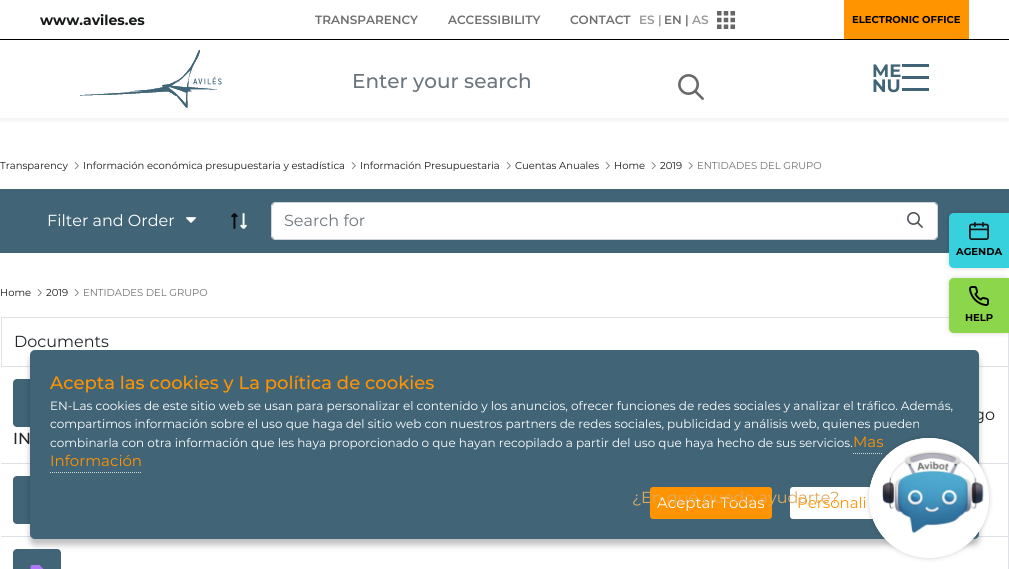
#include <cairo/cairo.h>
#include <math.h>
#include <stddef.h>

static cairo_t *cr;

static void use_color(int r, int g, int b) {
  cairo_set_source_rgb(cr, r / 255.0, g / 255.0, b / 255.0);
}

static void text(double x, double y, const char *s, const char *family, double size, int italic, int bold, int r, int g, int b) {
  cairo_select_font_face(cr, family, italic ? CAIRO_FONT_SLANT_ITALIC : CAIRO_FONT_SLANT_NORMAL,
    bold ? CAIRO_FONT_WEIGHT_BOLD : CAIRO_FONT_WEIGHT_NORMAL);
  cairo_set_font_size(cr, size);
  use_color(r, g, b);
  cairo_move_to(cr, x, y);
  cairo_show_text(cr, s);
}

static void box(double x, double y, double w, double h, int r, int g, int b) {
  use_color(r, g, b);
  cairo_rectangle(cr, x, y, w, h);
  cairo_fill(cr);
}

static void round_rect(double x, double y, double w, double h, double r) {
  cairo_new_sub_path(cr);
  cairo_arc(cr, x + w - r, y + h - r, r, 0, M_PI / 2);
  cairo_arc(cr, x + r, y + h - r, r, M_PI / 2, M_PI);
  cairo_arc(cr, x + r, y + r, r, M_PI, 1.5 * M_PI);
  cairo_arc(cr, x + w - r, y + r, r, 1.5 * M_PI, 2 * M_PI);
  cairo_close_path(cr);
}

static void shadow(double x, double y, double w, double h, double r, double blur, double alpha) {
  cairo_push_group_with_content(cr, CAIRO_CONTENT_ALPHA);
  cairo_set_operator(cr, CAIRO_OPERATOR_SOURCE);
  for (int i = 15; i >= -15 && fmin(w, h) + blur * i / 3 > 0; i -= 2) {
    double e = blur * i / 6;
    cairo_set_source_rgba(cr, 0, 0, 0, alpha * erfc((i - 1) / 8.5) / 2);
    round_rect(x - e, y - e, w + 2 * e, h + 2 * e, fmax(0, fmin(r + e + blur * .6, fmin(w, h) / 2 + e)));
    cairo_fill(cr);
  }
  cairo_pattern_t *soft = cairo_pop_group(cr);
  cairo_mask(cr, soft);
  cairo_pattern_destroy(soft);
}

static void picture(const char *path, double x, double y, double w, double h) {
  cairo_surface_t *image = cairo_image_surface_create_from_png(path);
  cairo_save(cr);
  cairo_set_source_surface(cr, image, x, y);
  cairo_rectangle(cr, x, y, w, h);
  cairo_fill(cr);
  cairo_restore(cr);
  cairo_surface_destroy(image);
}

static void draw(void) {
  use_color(255, 255, 255);
  cairo_paint(cr);
  box(0, 39, 1009, 1, 0, 0, 0);
  picture("img_01.png", 717, 11, 18, 18);
  box(844, 0, 125, 39, 255, 147, 0);
  cairo_save(cr);
  cairo_rectangle(cr, 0, 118, 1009, 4);
  cairo_clip(cr);
  use_color(0, 0, 0);
  shadow(0, 43, 1009, 78, 0, 3, 0.06);
  cairo_restore(cr);
  picture("img_02.png", 80, 50, 142, 58);
  picture("img_03.png", 678, 74, 26, 26);
  box(902, 64, 27, 3, 65, 101, 119);
  box(902, 76, 27, 3, 65, 101, 119);
  box(902, 88, 27, 3, 65, 101, 119);
  picture("img_04.png", 74, 162, 5, 7);
  picture("img_04.png", 351, 162, 5, 7);
  picture("img_04.png", 506, 162, 5, 7);
  picture("img_04.png", 605, 162, 5, 7);
  picture("img_04.png", 651, 162, 5, 7);
  picture("img_04.png", 688, 162, 5, 7);
  box(0, 189, 1009, 64, 65, 101, 119);
  picture("img_05.png", 186, 217, 10, 6);
  picture("img_06.png", 231, 213, 16, 16);
  use_color(255, 255, 255);
  cairo_new_path(cr);
  cairo_move_to(cr, 275, 203);
  cairo_line_to(cr, 893, 203);
  cairo_line_to(cr, 893, 239);
  cairo_line_to(cr, 275, 239);
  cairo_curve_to(cr, 273.5, 239, 272, 237.5, 272, 236);
  cairo_line_to(cr, 272, 206);
  cairo_curve_to(cr, 272, 204.5, 273.5, 203, 275, 203);
  cairo_close_path(cr);
  cairo_fill(cr);
  use_color(206, 212, 218);
  cairo_set_fill_rule(cr, CAIRO_FILL_RULE_EVEN_ODD);
  cairo_new_path(cr);
  cairo_move_to(cr, 275, 202);
  cairo_line_to(cr, 893, 202);
  cairo_line_to(cr, 893, 240);
  cairo_line_to(cr, 275, 240);
  cairo_curve_to(cr, 273, 240, 271, 238, 271, 236);
  cairo_line_to(cr, 271, 206);
  cairo_curve_to(cr, 271, 204, 273, 202, 275, 202);
  cairo_close_path(cr);
  cairo_move_to(cr, 275, 203);
  cairo_line_to(cr, 893, 203);
  cairo_line_to(cr, 893, 239);
  cairo_line_to(cr, 275, 239);
  cairo_curve_to(cr, 273, 239, 272, 238, 272, 236);
  cairo_line_to(cr, 272, 206);
  cairo_curve_to(cr, 272, 204, 273, 203, 275, 203);
  cairo_close_path(cr);
  cairo_fill(cr);
  use_color(255, 255, 255);
  cairo_new_path(cr);
  cairo_move_to(cr, 893, 203);
  cairo_line_to(cr, 934, 203);
  cairo_curve_to(cr, 935.5, 203, 937, 204.5, 937, 206);
  cairo_line_to(cr, 937, 236);
  cairo_curve_to(cr, 937, 237.5, 935.5, 239, 934, 239);
  cairo_line_to(cr, 893, 239);
  cairo_close_path(cr);
  cairo_fill(cr);
  use_color(206, 212, 218);
  cairo_new_path(cr);
  cairo_move_to(cr, 893, 202);
  cairo_line_to(cr, 934, 202);
  cairo_curve_to(cr, 936, 202, 938, 204, 938, 206);
  cairo_line_to(cr, 938, 236);
  cairo_curve_to(cr, 938, 238, 936, 240, 934, 240);
  cairo_line_to(cr, 893, 240);
  cairo_close_path(cr);
  cairo_move_to(cr, 893, 203);
  cairo_line_to(cr, 934, 203);
  cairo_curve_to(cr, 936, 203, 937, 204, 937, 206);
  cairo_line_to(cr, 937, 236);
  cairo_curve_to(cr, 937, 238, 936, 239, 934, 239);
  cairo_line_to(cr, 893, 239);
  cairo_close_path(cr);
  cairo_fill(cr);
  picture("img_07.png", 907, 212, 16, 16);
  picture("img_04.png", 37, 289, 5, 7);
  picture("img_04.png", 74, 289, 5, 7);
  box(1, 317, 1, 49, 222, 226, 230);
  box(1008, 333, 1, 236, 222, 226, 230);
  box(1, 317, 948, 1, 222, 226, 230);
  box(979, 366, 30, 1, 222, 226, 230);
  box(1, 366, 29, 1, 222, 226, 230);
  use_color(65, 101, 119);
  round_rect(13, 379, 48, 48, 4);
  cairo_fill(cr);
  box(1, 463, 29, 1, 222, 226, 230);
  use_color(65, 101, 119);
  round_rect(13, 476, 48, 48, 4);
  cairo_fill(cr);
  box(979, 463, 30, 1, 222, 226, 230);
  box(1, 536, 30, 1, 222, 226, 230);
  use_color(65, 101, 119);
  round_rect(13, 549, 48, 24, 4);
  cairo_fill(cr);
  picture("img_08.png", 30, 565, 14, 4);
  box(978, 536, 31, 1, 222, 226, 230);
  use_color(0, 0, 0);
  shadow(949, 213, 60, 55, 5, 3, 0.16);
  use_color(55, 209, 222);
  cairo_new_path(cr);
  cairo_move_to(cr, 954, 213);
  cairo_line_to(cr, 1009, 213);
  cairo_line_to(cr, 1009, 268);
  cairo_line_to(cr, 954, 268);
  cairo_curve_to(cr, 951, 268, 949, 266, 949, 263);
  cairo_line_to(cr, 949, 218);
  cairo_curve_to(cr, 949, 215, 951, 213, 954, 213);
  cairo_close_path(cr);
  cairo_fill(cr);
  picture("img_09.png", 969, 222, 20, 18);
  use_color(0, 0, 0);
  shadow(949, 278, 60, 55, 5, 3, 0.16);
  use_color(139, 214, 74);
  cairo_new_path(cr);
  cairo_move_to(cr, 954, 278);
  cairo_line_to(cr, 1009, 278);
  cairo_line_to(cr, 1009, 333);
  cairo_line_to(cr, 954, 333);
  cairo_curve_to(cr, 951, 333, 949, 331, 949, 328);
  cairo_line_to(cr, 949, 283);
  cairo_curve_to(cr, 949, 280, 951, 278, 954, 278);
  cairo_close_path(cr);
  cairo_fill(cr);
  picture("img_10.png", 969, 286, 20, 20);
  use_color(0, 0, 0);
  shadow(30, 356, 949, 189, 5, 3, 0.25);
  text(40, 25, "www.aviles.es", "Montserrat", 14, 0, 1, 22, 24, 25);
  text(315, 24, "TRANSPARENCY", "Montserrat SemiBold", 12, 0, 0, 112, 112, 112);
  text(448, 24, "ACCESSIBILITY", "Montserrat SemiBold", 12, 0, 0, 112, 112, 112);
  text(570, 24, "CONTACT", "Montserrat SemiBold", 12, 0, 0, 112, 112, 112);
  text(639, 24, "ES |", "Montserrat SemiBold", 12, 0, 0, 154, 154, 154);
  text(664, 24, "EN |", "Montserrat SemiBold", 12, 0, 0, 112, 112, 112);
  text(692, 24, "AS", "Montserrat SemiBold", 12, 0, 0, 154, 154, 154);
  text(852, 23, "ELECTRONIC OFFICE", "Montserrat", 10, 0, 1, 0, 0, 0);
  text(352, 88, "Enter your search", "Montserrat Medium", 20, 0, 0, 108, 117, 125);
  text(872, 77, "ME", "Montserrat", 18, 0, 1, 65, 101, 119);
  text(872, 92, "NU", "Montserrat", 18, 0, 1, 65, 101, 119);
  text(0, 169, "Transparency", "Montserrat", 10, 0, 0, 22, 24, 25);
  text(83, 169, "Información económica presupuestaria y estadística", "Montserrat", 10, 0, 0, 22, 24, 25);
  text(360, 169, "Información Presupuestaria", "Montserrat", 10, 0, 0, 22, 24, 25);
  text(515, 169, "Cuentas Anuales", "Montserrat", 10, 0, 0, 22, 24, 25);
  text(614, 169, "Home", "Montserrat", 10, 0, 0, 22, 24, 25);
  text(660, 169, "2019", "Montserrat", 10, 0, 0, 22, 24, 25);
  text(697, 169, "ENTIDADES DEL GRUPO", "Montserrat", 10, 0, 0, 112, 112, 112);
  text(47, 226, "Filter and Order", "Montserrat", 16, 0, 0, 255, 255, 255);
  text(284, 226, "Search for", "Montserrat", 16, 0, 0, 108, 117, 125);
  text(0, 296, "Home", "Montserrat", 10, 0, 0, 22, 24, 25);
  text(46, 296, "2019", "Montserrat", 10, 0, 0, 22, 24, 25);
  text(83, 296, "ENTIDADES DEL GRUPO", "Montserrat", 10, 0, 0, 112, 112, 112);
  text(14, 347, "Documents", "Montserrat", 16, 0, 0, 33, 37, 41);
  text(974, 420, "go", "Montserrat", 16, 0, 0, 33, 37, 41);
  text(13, 444, "IN", "Montserrat Medium", 16, 0, 0, 33, 37, 41);
  text(956, 255, "AGENDA", "Montserrat", 10, 0, 1, 0, 0, 0);
  text(965, 321, "HELP", "Montserrat", 10, 0, 1, 0, 0, 0);
  use_color(65, 101, 119);
  round_rect(30, 350, 949, 189, 5);
  cairo_fill(cr);
  text(50, 389, "Acepta las cookies y La política de cookies", "Montserrat Medium", 18, 0, 0, 255, 147, 0);
  text(50, 410, "EN-Las cookies de este sitio web se usan para personalizar el contenido y los anuncios, ofrecer funciones de redes sociales y analizar el tráfico. Además,", "Montserrat", 12, 0, 0, 255, 255, 255);
  text(50, 428, "compartimos información sobre el uso que haga del sitio web con nuestros partners de redes sociales, publicidad y análisis web, quienes pueden", "Montserrat", 12, 0, 0, 255, 255, 255);
  text(50, 447, "combinarla con otra información que les haya proporcionado o que hayan recopilado a partir del uso que haya hecho de sus servicios.", "Montserrat", 12, 0, 0, 255, 255, 255);
  text(853, 447, "Mas", "Montserrat", 15, 0, 0, 255, 147, 0);
  cairo_new_path(cr);
  cairo_move_to(cr, 853, 453.5);
  cairo_line_to(cr, 883, 453.5);
  use_color(208, 217, 221);
  cairo_set_line_width(cr, 1);
  cairo_set_dash(cr, (double[]){1, 1}, 2, 0);
  cairo_stroke(cr);
  text(50, 466, "Información", "Montserrat", 15, 0, 0, 255, 147, 0);
  cairo_new_path(cr);
  cairo_move_to(cr, 50, 472.5);
  cairo_line_to(cr, 142, 472.5);
  use_color(208, 217, 221);
  cairo_stroke(cr);
  use_color(255, 147, 0);
  round_rect(650, 487, 122, 32, 3);
  cairo_fill(cr);
  text(657, 508, "Aceptar Todas", "Montserrat", 15, 0, 0, 255, 255, 255);
  round_rect(790, 487, 169, 32, 3);
  cairo_fill(cr);
  text(797, 508, "Personali", "Montserrat", 15, 0, 0, 255, 147, 0);
  text(632, 503, "¿En qué puedo ayudarte?", "Montserrat", 16, 0, 0, 223, 171, 96);
  use_color(0, 0, 0);
  shadow(869, 438, 120, 120, 60, 2.5, 0.2);
  use_color(255, 255, 255);
  cairo_arc(cr, 929, 498, 60, 0, 2 * M_PI);
  cairo_fill(cr);
  picture("img_11.png", 869, 438, 120, 117);
}

int main(void) {
  cairo_surface_t *surface = cairo_image_surface_create(CAIRO_FORMAT_RGB24, 1009, 569);
  cr = cairo_create(surface);
  cairo_font_options_t *options = cairo_font_options_create();
  cairo_font_options_set_hint_metrics(options, CAIRO_HINT_METRICS_OFF);
  cairo_font_options_set_hint_style(options, CAIRO_HINT_STYLE_NONE);
  cairo_set_font_options(cr, options);
  cairo_set_miter_limit(cr, 4);
  draw();
  cairo_surface_write_to_png(surface, "out.png");
  cairo_font_options_destroy(options);
  cairo_destroy(cr);
  cairo_surface_destroy(surface);
  return 0;
}
